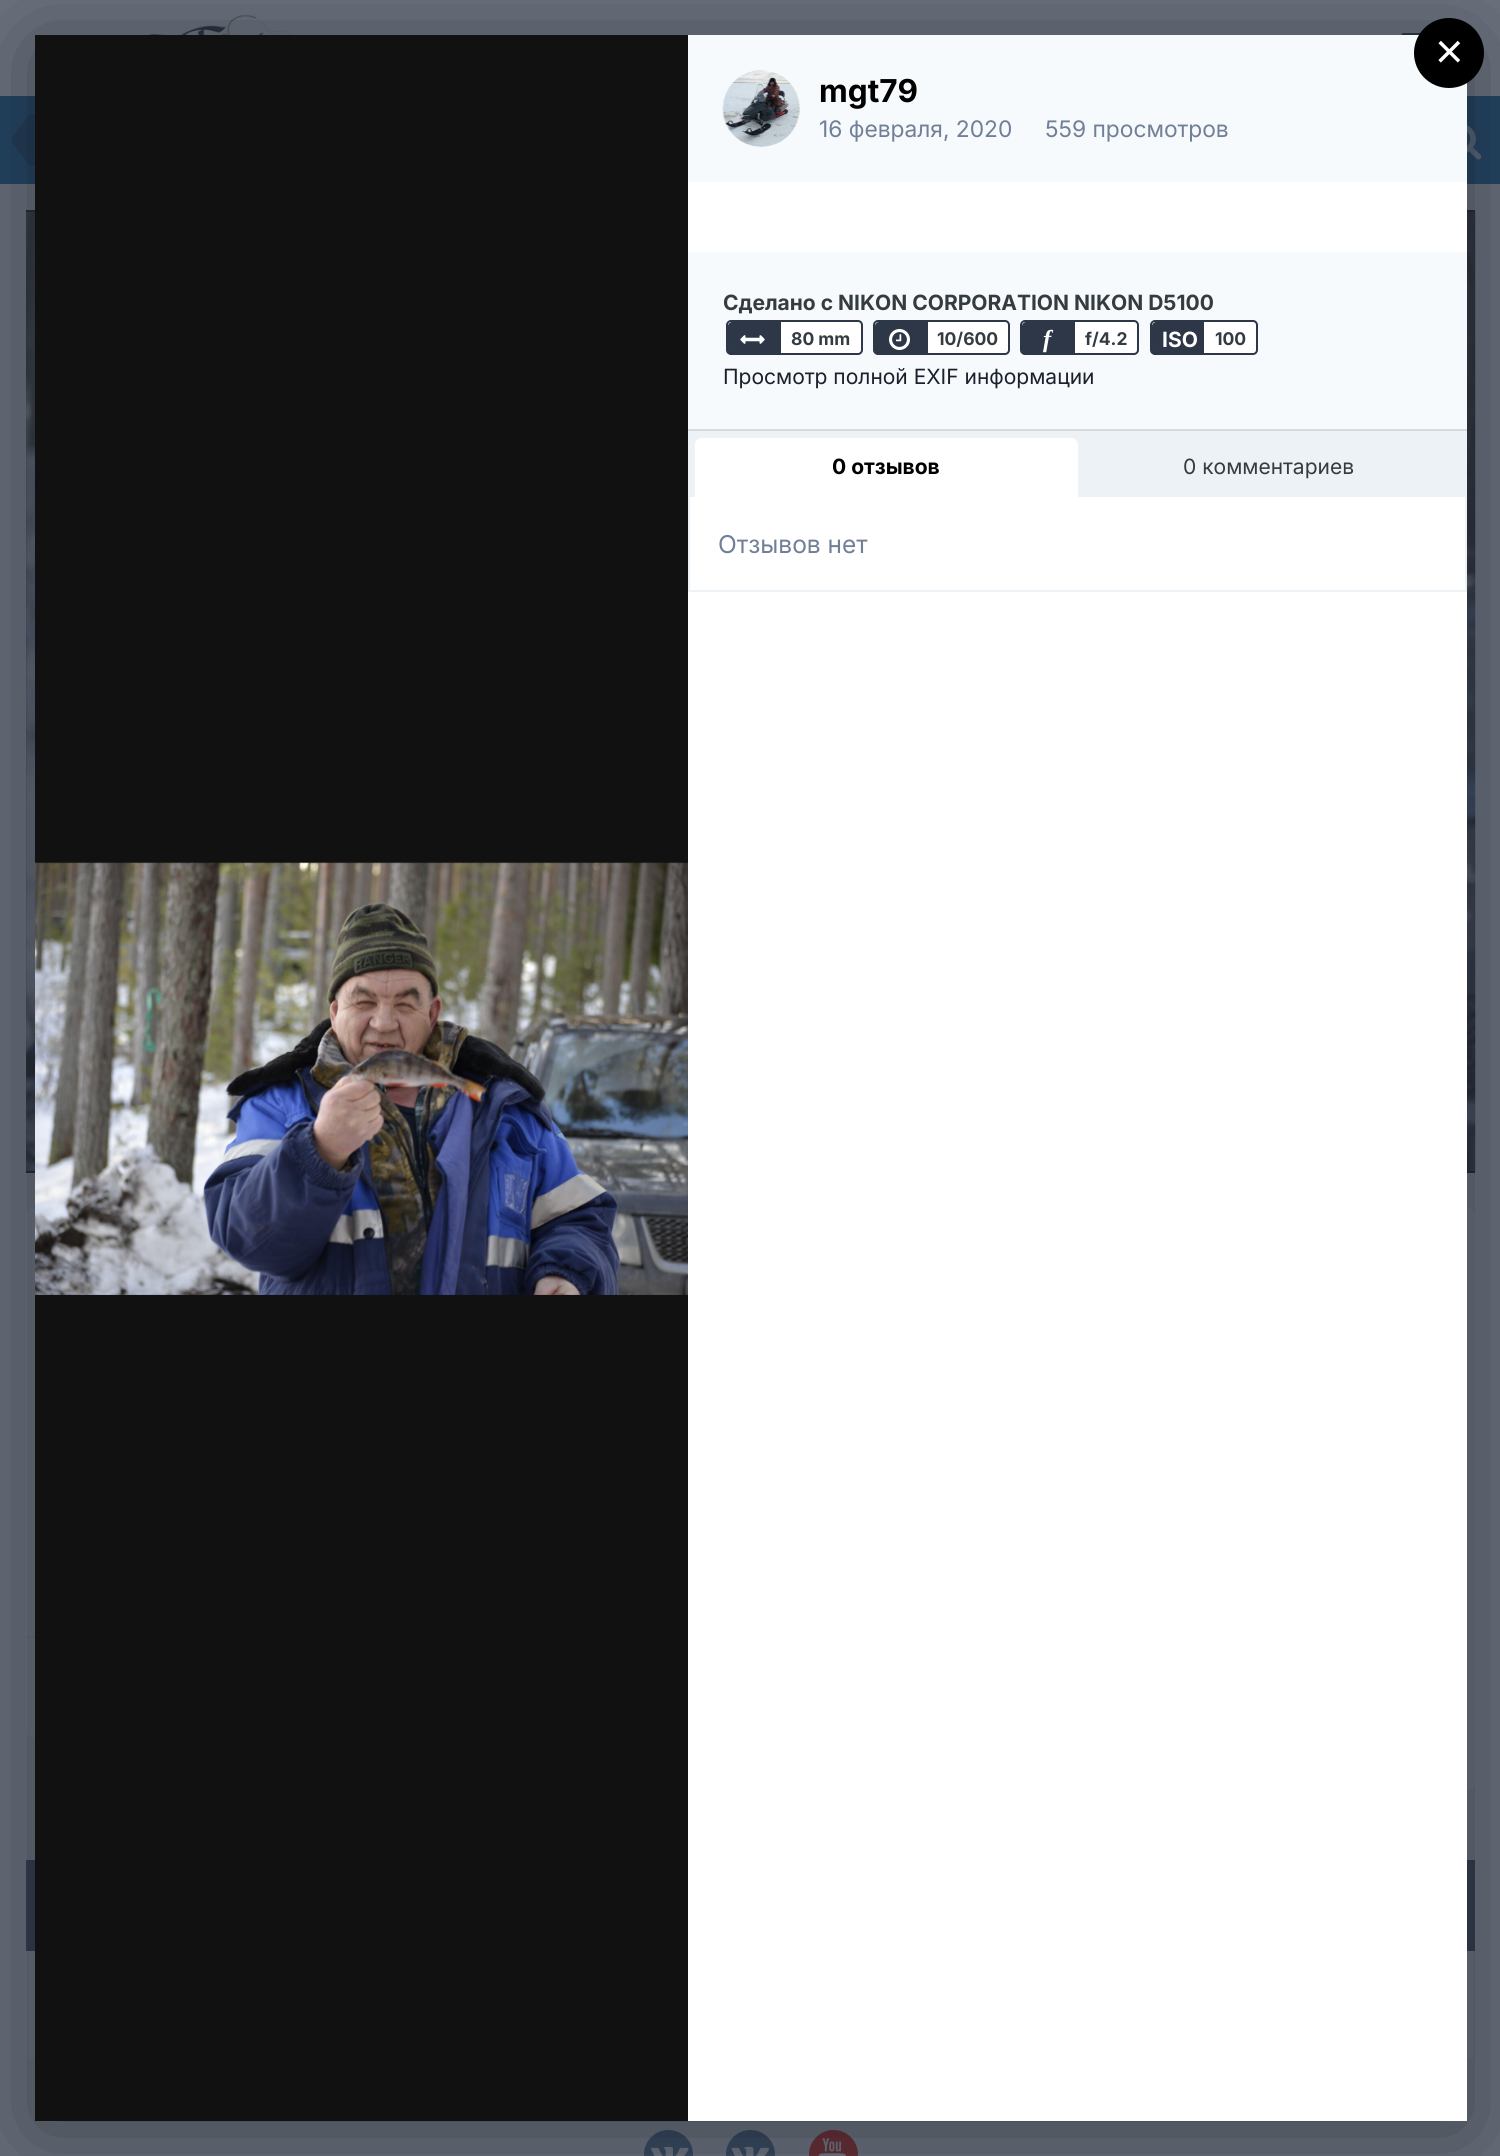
#include <cairo/cairo.h>
#include <math.h>
#include <stddef.h>

static cairo_t *cr;

static void use_color(int r, int g, int b) {
  cairo_set_source_rgb(cr, r / 255.0, g / 255.0, b / 255.0);
}

static void text(double x, double y, const char *s, const char *family, double size, int italic, int bold, int r, int g, int b) {
  cairo_select_font_face(cr, family, italic ? CAIRO_FONT_SLANT_ITALIC : CAIRO_FONT_SLANT_NORMAL,
    bold ? CAIRO_FONT_WEIGHT_BOLD : CAIRO_FONT_WEIGHT_NORMAL);
  cairo_set_font_size(cr, size);
  use_color(r, g, b);
  cairo_move_to(cr, x, y);
  cairo_show_text(cr, s);
}

static void box(double x, double y, double w, double h, int r, int g, int b) {
  use_color(r, g, b);
  cairo_rectangle(cr, x, y, w, h);
  cairo_fill(cr);
}

static void round_rect(double x, double y, double w, double h, double r) {
  cairo_new_sub_path(cr);
  cairo_arc(cr, x + w - r, y + h - r, r, 0, M_PI / 2);
  cairo_arc(cr, x + r, y + h - r, r, M_PI / 2, M_PI);
  cairo_arc(cr, x + r, y + r, r, M_PI, 1.5 * M_PI);
  cairo_arc(cr, x + w - r, y + r, r, 1.5 * M_PI, 2 * M_PI);
  cairo_close_path(cr);
}

static void shadow(double x, double y, double w, double h, double r, double blur, double alpha) {
  cairo_push_group_with_content(cr, CAIRO_CONTENT_ALPHA);
  cairo_set_operator(cr, CAIRO_OPERATOR_SOURCE);
  for (int i = 15; i >= -15 && fmin(w, h) + blur * i / 3 > 0; i -= 2) {
    double e = blur * i / 6;
    cairo_set_source_rgba(cr, 0, 0, 0, alpha * erfc((i - 1) / 8.5) / 2);
    round_rect(x - e, y - e, w + 2 * e, h + 2 * e, fmax(0, fmin(r + e + blur * .6, fmin(w, h) / 2 + e)));
    cairo_fill(cr);
  }
  cairo_pattern_t *soft = cairo_pop_group(cr);
  cairo_mask(cr, soft);
  cairo_pattern_destroy(soft);
}

static void picture(const char *path, double x, double y, double w, double h) {
  cairo_surface_t *image = cairo_image_surface_create_from_png(path);
  cairo_save(cr);
  cairo_set_source_surface(cr, image, x, y);
  cairo_rectangle(cr, x, y, w, h);
  cairo_fill(cr);
  cairo_restore(cr);
  cairo_surface_destroy(image);
}

static void draw(void) {
  use_color(103, 111, 124);
  cairo_paint(cr);
  box(0, 0, 1500, 96, 108, 115, 127);
  picture("img_01.png", 63, 14, 344, 21);
  picture("img_02.png", 1401, 33, 20, 2);
  box(0, 96, 1500, 88, 37, 69, 99);
  use_color(36, 61, 87);
  cairo_new_path(cr);
  cairo_move_to(cr, 35, 140);
  cairo_line_to(cr, 35, 166);
  cairo_curve_to(cr, 31, 166, 27.5, 164, 25, 160);
  cairo_line_to(cr, 12.5, 142.5);
  cairo_line_to(cr, 12, 140);
  cairo_close_path(cr);
  cairo_move_to(cr, 35, 140);
  cairo_line_to(cr, 12, 140);
  cairo_line_to(cr, 12.5, 137.5);
  cairo_line_to(cr, 25, 120);
  cairo_curve_to(cr, 27.5, 116, 31, 114, 35, 114);
  cairo_close_path(cr);
  cairo_fill(cr);
  picture("img_03.png", 1467, 125, 15, 35);
  box(26, 210, 1449, 963, 37, 44, 56);
  box(26, 212, 1449, 959, 42, 49, 61);
  picture("img_08.png", 26, 211, 1450, 960);
  use_color(108, 115, 127);
  round_rect(26, 1208, 938, 530, 7);
  cairo_fill(cr);
  box(26, 1636, 9, 2, 102, 109, 121);
  use_color(108, 115, 127);
  round_rect(1006, 1208, 469, 582, 7);
  cairo_fill(cr);
  box(26, 1860, 1449, 91, 54, 64, 82);
  box(28, 1951, 1446, 107, 108, 115, 127);
  use_color(56, 73, 96);
  cairo_arc(cr, 668.5, 2154.5, 24.5, 0, 2 * M_PI);
  cairo_fill(cr);
  picture("img_09.png", 651, 2146, 38, 10);
  cairo_arc(cr, 750.5, 2154.5, 24.5, 0, 2 * M_PI);
  cairo_fill(cr);
  picture("img_10.png", 731, 2146, 38, 10);
  use_color(101, 48, 57);
  cairo_arc(cr, 833.5, 2154.5, 24.5, 0, 2 * M_PI);
  cairo_fill(cr);
  picture("img_11.png", 818, 2138, 28, 18);
  use_color(0, 0, 0);
  shadow(35, 44, 1432, 2086, 0, 48, 0.4);
  box(688, 35, 779, 147, 247, 250, 252);
  use_color(0, 0, 0);
  cairo_arc(cr, 1449, 53, 35, 0, 2 * M_PI);
  cairo_fill(cr);
  box(35, 35, 653, 2086, 17, 17, 17);
  box(688, 182, 779, 1939, 255, 255, 255);
  cairo_arc(cr, 761.5, 108.5, 38.5, 0, 2 * M_PI);
  cairo_fill(cr);
  picture("img_04.png", 722, 70, 78, 77);
  box(688, 252, 779, 177, 247, 250, 252);
  use_color(255, 255, 255);
  round_rect(727, 321, 135, 33, 4);
  cairo_fill_preserve(cr);
  use_color(45, 55, 72);
  cairo_stroke(cr);
  cairo_new_path(cr);
  cairo_move_to(cr, 732, 322);
  cairo_line_to(cr, 781, 322);
  cairo_line_to(cr, 781, 355);
  cairo_line_to(cr, 732, 355);
  cairo_curve_to(cr, 730, 355, 728, 353, 728, 351);
  cairo_line_to(cr, 728, 326);
  cairo_curve_to(cr, 728, 324, 730, 322, 732, 322);
  cairo_close_path(cr);
  cairo_fill(cr);
  picture("img_05.png", 740, 335, 25, 9);
  use_color(255, 255, 255);
  round_rect(874, 321, 135, 33, 4);
  cairo_fill_preserve(cr);
  use_color(45, 55, 72);
  cairo_stroke(cr);
  cairo_new_path(cr);
  cairo_move_to(cr, 879, 322);
  cairo_line_to(cr, 928, 322);
  cairo_line_to(cr, 928, 355);
  cairo_line_to(cr, 879, 355);
  cairo_curve_to(cr, 877, 355, 875, 353, 875, 351);
  cairo_line_to(cr, 875, 326);
  cairo_curve_to(cr, 875, 324, 877, 322, 879, 322);
  cairo_close_path(cr);
  cairo_fill(cr);
  picture("img_06.png", 889, 329, 21, 21);
  use_color(255, 255, 255);
  round_rect(1021, 321, 117, 33, 4);
  cairo_fill_preserve(cr);
  use_color(45, 55, 72);
  cairo_stroke(cr);
  cairo_new_path(cr);
  cairo_move_to(cr, 1026, 322);
  cairo_line_to(cr, 1075, 322);
  cairo_line_to(cr, 1075, 355);
  cairo_line_to(cr, 1026, 355);
  cairo_curve_to(cr, 1024, 355, 1022, 353, 1022, 351);
  cairo_line_to(cr, 1022, 326);
  cairo_curve_to(cr, 1022, 324, 1024, 322, 1026, 322);
  cairo_close_path(cr);
  cairo_fill(cr);
  use_color(255, 255, 255);
  round_rect(1151, 321, 106, 33, 4);
  cairo_fill_preserve(cr);
  use_color(45, 55, 72);
  cairo_stroke(cr);
  cairo_new_path(cr);
  cairo_move_to(cr, 1156, 322);
  cairo_line_to(cr, 1204, 322);
  cairo_line_to(cr, 1204, 355);
  cairo_line_to(cr, 1156, 355);
  cairo_curve_to(cr, 1154, 355, 1152, 353, 1152, 351);
  cairo_line_to(cr, 1152, 326);
  cairo_curve_to(cr, 1152, 324, 1154, 322, 1156, 322);
  cairo_close_path(cr);
  cairo_fill(cr);
  box(688, 431, 779, 66, 237, 242, 247);
  box(688, 429, 779, 2, 213, 218, 222);
  use_color(255, 255, 255);
  cairo_new_path(cr);
  cairo_move_to(cr, 702, 438);
  cairo_line_to(cr, 1071, 438);
  cairo_curve_to(cr, 1075, 438, 1078, 441, 1078, 445);
  cairo_line_to(cr, 1078, 497);
  cairo_line_to(cr, 695, 497);
  cairo_line_to(cr, 695, 445);
  cairo_curve_to(cr, 695, 441, 698, 438, 702, 438);
  cairo_close_path(cr);
  cairo_fill(cr);
  box(1465, 497, 2, 95, 237, 242, 247);
  box(688, 590, 779, 2, 237, 242, 247);
  box(688, 497, 2, 95, 237, 242, 247);
  picture("img_07.png", 35, 862, 653, 433);
  text(1435, 68, "×", "Liberation Sans", 49, 0, 0, 255, 255, 255);
  text(819, 102, "mgt79", "Inter", 31.5, 0, 1, 0, 0, 0);
  text(819, 137, "16 февраля, 2020", "Inter", 22.75, 0, 0, 113, 128, 150);
  text(1045, 137, "559 просмотров", "Inter", 22.75, 0, 0, 113, 128, 150);
  text(723, 310, "Сделано с NIKON CORPORATION NIKON D5100", "Inter", 21, 0, 1, 53, 60, 65);
  text(791, 345, "80 mm", "Inter", 17.5, 0, 1, 53, 60, 65);
  text(937, 345, "10/600", "Inter", 17.5, 0, 1, 53, 60, 65);
  text(1043, 347, "f", "Liberation Serif", 24.5, 1, 1, 255, 255, 255);
  text(1085, 345, "f/4.2", "Inter", 17.5, 0, 1, 53, 60, 65);
  text(1162, 347, "ISO", "Inter", 21, 0, 1, 255, 255, 255);
  text(1215, 345, "100", "Inter", 17.5, 0, 1, 53, 60, 65);
  text(723, 384, "Просмотр полной EXIF информации", "Inter", 21, 0, 0, 26, 32, 44);
  text(832, 474, "0 отзывов", "Inter", 21, 0, 1, 0, 0, 0);
  text(1183, 474, "0 комментариев", "Inter", 21, 0, 0, 53, 60, 65);
  text(718, 553, "Отзывов нет", "Inter", 24.5, 0, 0, 113, 128, 150);
}

int main(void) {
  cairo_surface_t *surface = cairo_image_surface_create(CAIRO_FORMAT_RGB24, 1500, 2156);
  cr = cairo_create(surface);
  cairo_font_options_t *options = cairo_font_options_create();
  cairo_font_options_set_hint_metrics(options, CAIRO_HINT_METRICS_OFF);
  cairo_font_options_set_hint_style(options, CAIRO_HINT_STYLE_NONE);
  cairo_set_font_options(cr, options);
  cairo_set_miter_limit(cr, 4);
  draw();
  cairo_surface_write_to_png(surface, "out.png");
  cairo_font_options_destroy(options);
  cairo_destroy(cr);
  cairo_surface_destroy(surface);
  return 0;
}
